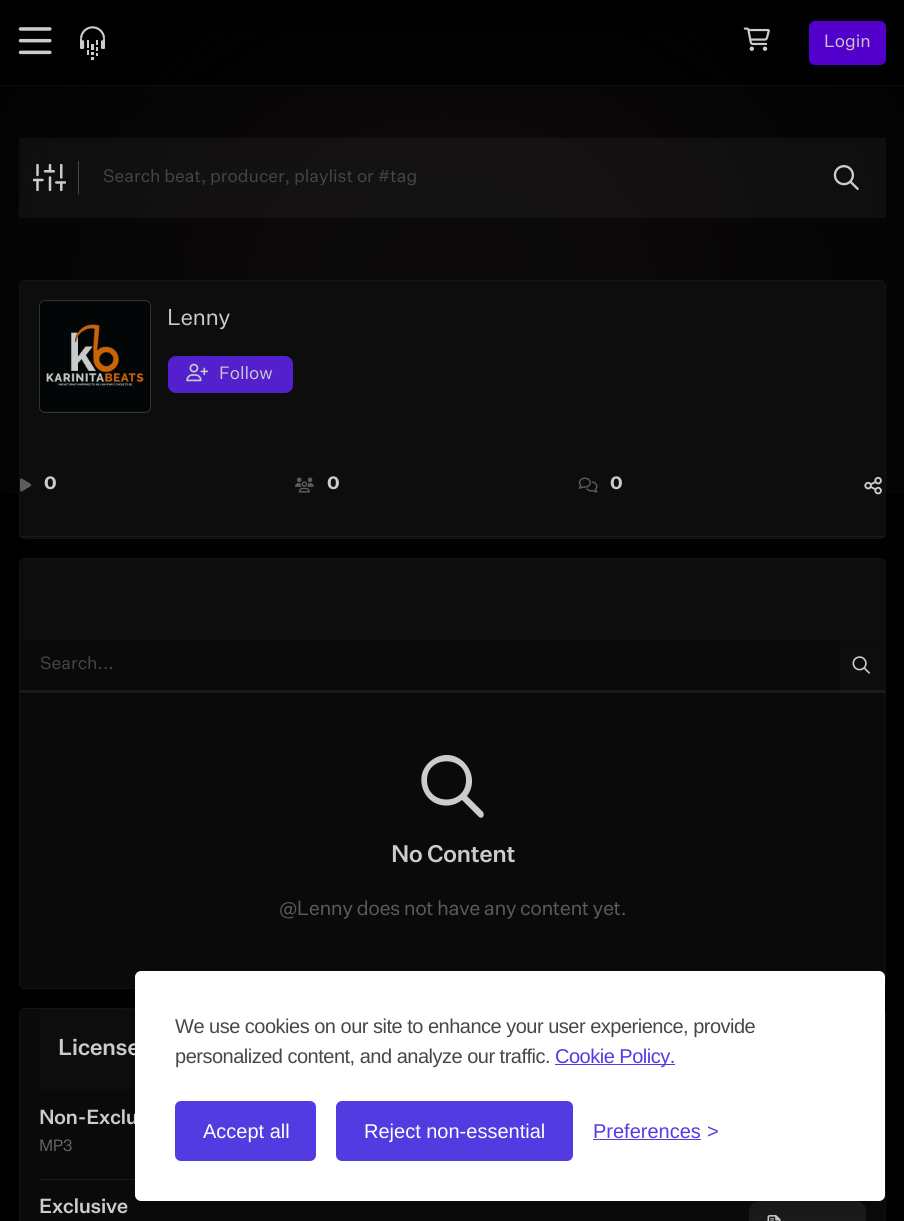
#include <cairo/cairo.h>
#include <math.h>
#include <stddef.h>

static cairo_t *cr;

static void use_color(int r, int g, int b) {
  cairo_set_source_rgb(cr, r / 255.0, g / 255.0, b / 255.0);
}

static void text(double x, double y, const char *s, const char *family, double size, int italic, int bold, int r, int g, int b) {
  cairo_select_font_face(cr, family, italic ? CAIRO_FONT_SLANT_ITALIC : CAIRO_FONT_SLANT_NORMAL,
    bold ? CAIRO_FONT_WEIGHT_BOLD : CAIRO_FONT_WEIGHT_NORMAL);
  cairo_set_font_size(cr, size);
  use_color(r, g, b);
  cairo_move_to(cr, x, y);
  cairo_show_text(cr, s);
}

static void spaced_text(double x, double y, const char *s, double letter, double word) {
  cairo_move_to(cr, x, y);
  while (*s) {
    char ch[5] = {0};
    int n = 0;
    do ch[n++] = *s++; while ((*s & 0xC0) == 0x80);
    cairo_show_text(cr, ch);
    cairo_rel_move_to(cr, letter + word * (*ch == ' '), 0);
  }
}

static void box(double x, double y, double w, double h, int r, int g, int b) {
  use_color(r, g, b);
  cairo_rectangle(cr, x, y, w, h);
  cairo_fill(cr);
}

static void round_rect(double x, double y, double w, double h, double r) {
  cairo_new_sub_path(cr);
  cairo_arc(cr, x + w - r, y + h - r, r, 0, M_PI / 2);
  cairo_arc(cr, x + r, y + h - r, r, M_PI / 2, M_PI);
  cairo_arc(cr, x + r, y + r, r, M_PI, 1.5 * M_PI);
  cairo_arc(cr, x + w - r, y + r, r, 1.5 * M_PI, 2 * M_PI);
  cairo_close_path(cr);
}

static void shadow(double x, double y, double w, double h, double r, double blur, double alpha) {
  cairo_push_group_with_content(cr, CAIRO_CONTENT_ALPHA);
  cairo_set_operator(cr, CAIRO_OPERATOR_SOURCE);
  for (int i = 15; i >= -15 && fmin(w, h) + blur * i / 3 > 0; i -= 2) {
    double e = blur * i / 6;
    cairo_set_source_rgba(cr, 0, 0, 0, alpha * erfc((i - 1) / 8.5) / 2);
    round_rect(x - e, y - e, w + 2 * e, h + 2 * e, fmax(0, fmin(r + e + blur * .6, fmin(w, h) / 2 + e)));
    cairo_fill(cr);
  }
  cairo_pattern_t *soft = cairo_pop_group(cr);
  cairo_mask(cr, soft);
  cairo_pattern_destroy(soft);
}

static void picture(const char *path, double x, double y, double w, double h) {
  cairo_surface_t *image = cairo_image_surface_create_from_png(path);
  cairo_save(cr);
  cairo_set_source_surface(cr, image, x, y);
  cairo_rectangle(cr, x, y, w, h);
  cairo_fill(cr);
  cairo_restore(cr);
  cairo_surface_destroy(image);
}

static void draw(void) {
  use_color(0, 0, 0);
  cairo_paint(cr);
  picture("img_01.png", 0, 31, 904, 463);
  cairo_set_source_rgba(cr, 0, 0, 0, 0.75);
  cairo_rectangle(cr, 0, 31, 904, 54);
  cairo_fill(cr);
  box(0, 85, 904, 1, 12, 11, 12);
  picture("img_02.png", 18, 27, 34, 28);
  picture("img_03.png", 80, 26, 25, 34);
  picture("img_04.png", 743, 27, 27, 24);
  use_color(84, 0, 204);
  round_rect(809, 21, 77, 44, 6);
  cairo_fill(cr);
  cairo_set_source_rgba(cr, 0.8, 0.8, 0.8, 0.05);
  cairo_rectangle(cr, 19, 138, 867, 80);
  cairo_fill(cr);
  box(78, 161, 1, 33, 71, 71, 71);
  picture("img_05.png", 33, 164, 33, 27);
  picture("img_06.png", 833, 165, 26, 25);
  use_color(13, 13, 13);
  round_rect(19.5, 280.5, 866, 258, 5.5);
  cairo_fill_preserve(cr);
  use_color(20, 19, 19);
  cairo_set_line_width(cr, 1);
  cairo_stroke(cr);
  round_rect(39.5, 300.5, 111, 112, 5.5);
  use_color(50, 50, 50);
  cairo_stroke(cr);
  picture("img_07.png", 40, 301, 110, 110);
  use_color(84, 31, 204);
  round_rect(168.5, 356.5, 124, 36, 7.5);
  cairo_fill_preserve(cr);
  cairo_stroke(cr);
  picture("img_08.png", 186, 363, 23, 19);
  box(20, 536, 865, 1, 27, 27, 27);
  picture("img_09.png", 20, 478, 12, 14);
  picture("img_10.png", 295, 477, 19, 16);
  picture("img_11.png", 578, 477, 20, 16);
  picture("img_12.png", 864, 476, 18, 19);
  use_color(10, 10, 10);
  round_rect(19.5, 558.5, 866, 430, 5.5);
  cairo_fill_preserve(cr);
  use_color(20, 19, 19);
  cairo_stroke(cr);
  use_color(13, 13, 13);
  cairo_new_path(cr);
  cairo_move_to(cr, 26, 559);
  cairo_line_to(cr, 879, 559);
  cairo_curve_to(cr, 882.5, 559, 885, 561.5, 885, 565);
  cairo_line_to(cr, 885, 640);
  cairo_line_to(cr, 20, 640);
  cairo_line_to(cr, 20, 565);
  cairo_curve_to(cr, 20, 561.5, 22.5, 559, 26, 559);
  cairo_close_path(cr);
  cairo_fill(cr);
  box(20, 690, 865, 3, 27, 27, 27);
  box(839, 641, 45, 48, 13, 13, 13);
  picture("img_13.png", 852, 656, 18, 18);
  use_color(204, 204, 204);
  cairo_new_path(cr);
  cairo_move_to(cr, 466, 780);
  cairo_curve_to(cr, 466, 755, 427, 755, 427, 780);
  cairo_curve_to(cr, 427, 806, 466, 806, 466, 780);
  cairo_close_path(cr);
  cairo_move_to(cr, 462, 800);
  cairo_curve_to(cr, 451, 809, 434, 807, 426, 795);
  cairo_curve_to(cr, 421, 788, 420, 778, 423, 771);
  cairo_curve_to(cr, 426, 764, 431, 760, 437, 757);
  cairo_curve_to(cr, 461, 747, 482, 776, 467, 796);
  cairo_line_to(cr, 483, 812);
  cairo_curve_to(cr, 484, 814, 484, 815, 483, 817);
  cairo_curve_to(cr, 482, 818, 480, 818, 479, 817);
  cairo_close_path(cr);
  cairo_fill(cr);
  use_color(10, 10, 10);
  round_rect(19.5, 1008.5, 866, 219, 5.5);
  cairo_fill_preserve(cr);
  use_color(20, 19, 19);
  cairo_stroke(cr);
  use_color(13, 13, 13);
  cairo_new_path(cr);
  cairo_move_to(cr, 45, 1009);
  cairo_line_to(cr, 860, 1009);
  cairo_curve_to(cr, 863.5, 1009, 866, 1011.5, 866, 1015);
  cairo_line_to(cr, 866, 1090);
  cairo_line_to(cr, 39, 1090);
  cairo_line_to(cr, 39, 1015);
  cairo_curve_to(cr, 39, 1011.5, 41.5, 1009, 45, 1009);
  cairo_close_path(cr);
  cairo_fill(cr);
  box(39, 1179, 96, 1, 27, 27, 27);
  round_rect(749, 1201, 117, 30, 10);
  cairo_fill(cr);
  picture("img_14.png", 767, 1215, 14, 6);
  use_color(0, 0, 0);
  shadow(135, 971, 750, 230, 6, 31, 0.1);
  shadow(129, 978, 750, 230, 6, 6, 0.07);
  text(824, 47, "Login", "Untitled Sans", 17.5, 0, 0, 204, 204, 204);
  text(103, 182, "Search beat, producer, playlist or #tag", "Untitled Sans", 17.5, 0, 0, 71, 71, 71);
  cairo_set_font_size(cr, 22.5);
  use_color(204, 204, 204);
  spaced_text(167, 325, "Lenny", -0.5, 0);
  text(219, 379, "Follow", "Untitled Sans", 17.5, 0, 0, 204, 204, 204);
  cairo_select_font_face(cr, "Untitled Sans", CAIRO_FONT_SLANT_NORMAL, CAIRO_FONT_WEIGHT_BOLD);
  spaced_text(44, 489, "0", -0.5, 0);
  spaced_text(327, 489, "0", -0.5, 0);
  spaced_text(610, 489, "0", -0.5, 0);
  text(40, 669, "Search...", "Untitled Sans", 17.5, 0, 0, 71, 71, 71);
  cairo_select_font_face(cr, "Untitled Sans Medium", CAIRO_FONT_SLANT_NORMAL, CAIRO_FONT_WEIGHT_NORMAL);
  cairo_set_font_size(cr, 23.5);
  use_color(204, 204, 204);
  spaced_text(391, 862, "No Content", -0.5, 0);
  cairo_select_font_face(cr, "Untitled Sans", CAIRO_FONT_SLANT_NORMAL, CAIRO_FONT_WEIGHT_NORMAL);
  cairo_set_font_size(cr, 20);
  use_color(92, 92, 92);
  spaced_text(279, 915, "@Lenny does not have any content yet.", -0.5, 0);
  cairo_select_font_face(cr, "Untitled Sans Medium", CAIRO_FONT_SLANT_NORMAL, CAIRO_FONT_WEIGHT_NORMAL);
  cairo_set_font_size(cr, 22.5);
  use_color(204, 204, 204);
  spaced_text(58, 1055, "License", -0.5, 0);
  cairo_set_font_size(cr, 20);
  spaced_text(39, 1124, "Non-Exclu", -0.5, 0);
  cairo_select_font_face(cr, "Untitled Sans", CAIRO_FONT_SLANT_NORMAL, CAIRO_FONT_WEIGHT_NORMAL);
  cairo_set_font_size(cr, 16);
  use_color(107, 107, 107);
  spaced_text(39, 1151, "MP3", -0.5, 0);
  cairo_select_font_face(cr, "Untitled Sans Medium", CAIRO_FONT_SLANT_NORMAL, CAIRO_FONT_WEIGHT_NORMAL);
  cairo_set_font_size(cr, 20);
  use_color(204, 204, 204);
  spaced_text(39, 1213, "Exclusive", -0.5, 0);
  use_color(255, 255, 255);
  round_rect(135, 971, 750, 230, 6);
  cairo_fill(cr);
  cairo_select_font_face(cr, "Liberation Sans", CAIRO_FONT_SLANT_NORMAL, CAIRO_FONT_WEIGHT_NORMAL);
  use_color(71, 71, 71);
  spaced_text(175, 1033, "We use cookies on our site to enhance your user experience, provide", -0.5, 0);
  spaced_text(175, 1063, "personalized content, and analyze our traffic.", -0.5, 0);
  box(555, 1064, 120, 1, 83, 59, 226);
  spaced_text(555, 1063, "Cookie Policy.", -0.5, 0);
  round_rect(176.5, 1102.5, 138, 57, 4.5);
  cairo_fill_preserve(cr);
  cairo_set_line_width(cr, 3);
  cairo_stroke(cr);
  text(203, 1138, "Accept all", "Liberation Sans", 20, 0, 0, 255, 255, 255);
  use_color(83, 59, 226);
  round_rect(337.5, 1102.5, 234, 57, 4.5);
  cairo_fill_preserve(cr);
  cairo_stroke(cr);
  text(364, 1138, "Reject non-essential", "Liberation Sans", 20, 0, 0, 255, 255, 255);
  text(593, 1138, "Preferences", "Liberation Sans", 20, 0, 0, 83, 59, 226);
  box(593, 1139, 108, 1, 83, 59, 226);
  text(707, 1138, ">", "Liberation Sans", 20, 0, 0, 83, 59, 226);
}

int main(void) {
  cairo_surface_t *surface = cairo_image_surface_create(CAIRO_FORMAT_RGB24, 904, 1221);
  cr = cairo_create(surface);
  cairo_font_options_t *options = cairo_font_options_create();
  cairo_font_options_set_hint_metrics(options, CAIRO_HINT_METRICS_OFF);
  cairo_font_options_set_hint_style(options, CAIRO_HINT_STYLE_NONE);
  cairo_set_font_options(cr, options);
  cairo_set_miter_limit(cr, 4);
  draw();
  cairo_surface_write_to_png(surface, "out.png");
  cairo_font_options_destroy(options);
  cairo_destroy(cr);
  cairo_surface_destroy(surface);
  return 0;
}
